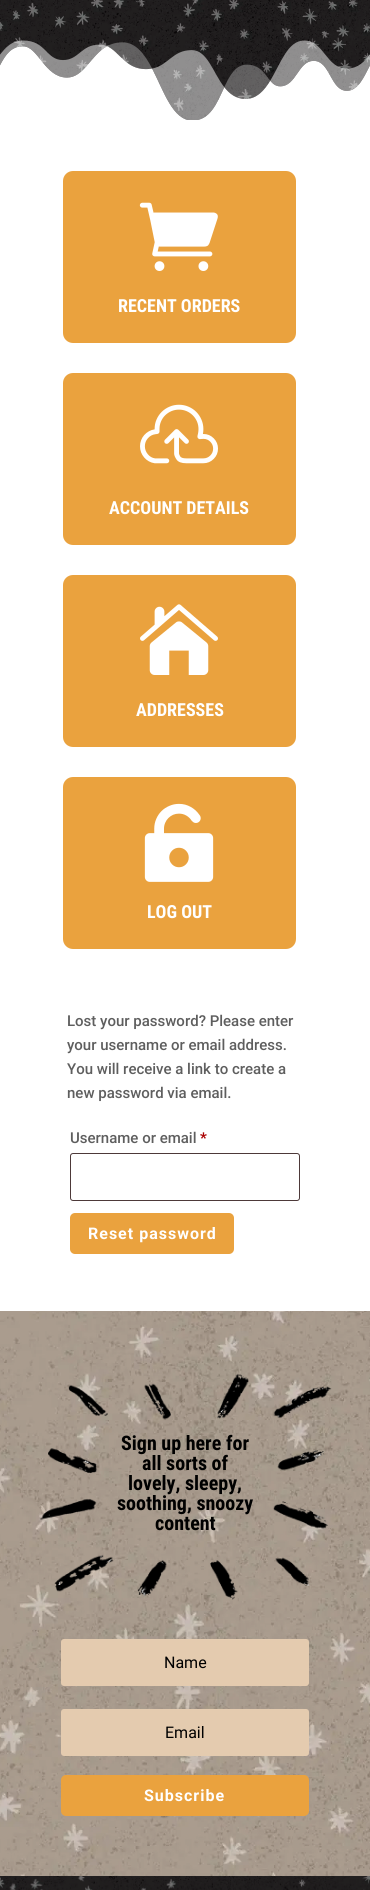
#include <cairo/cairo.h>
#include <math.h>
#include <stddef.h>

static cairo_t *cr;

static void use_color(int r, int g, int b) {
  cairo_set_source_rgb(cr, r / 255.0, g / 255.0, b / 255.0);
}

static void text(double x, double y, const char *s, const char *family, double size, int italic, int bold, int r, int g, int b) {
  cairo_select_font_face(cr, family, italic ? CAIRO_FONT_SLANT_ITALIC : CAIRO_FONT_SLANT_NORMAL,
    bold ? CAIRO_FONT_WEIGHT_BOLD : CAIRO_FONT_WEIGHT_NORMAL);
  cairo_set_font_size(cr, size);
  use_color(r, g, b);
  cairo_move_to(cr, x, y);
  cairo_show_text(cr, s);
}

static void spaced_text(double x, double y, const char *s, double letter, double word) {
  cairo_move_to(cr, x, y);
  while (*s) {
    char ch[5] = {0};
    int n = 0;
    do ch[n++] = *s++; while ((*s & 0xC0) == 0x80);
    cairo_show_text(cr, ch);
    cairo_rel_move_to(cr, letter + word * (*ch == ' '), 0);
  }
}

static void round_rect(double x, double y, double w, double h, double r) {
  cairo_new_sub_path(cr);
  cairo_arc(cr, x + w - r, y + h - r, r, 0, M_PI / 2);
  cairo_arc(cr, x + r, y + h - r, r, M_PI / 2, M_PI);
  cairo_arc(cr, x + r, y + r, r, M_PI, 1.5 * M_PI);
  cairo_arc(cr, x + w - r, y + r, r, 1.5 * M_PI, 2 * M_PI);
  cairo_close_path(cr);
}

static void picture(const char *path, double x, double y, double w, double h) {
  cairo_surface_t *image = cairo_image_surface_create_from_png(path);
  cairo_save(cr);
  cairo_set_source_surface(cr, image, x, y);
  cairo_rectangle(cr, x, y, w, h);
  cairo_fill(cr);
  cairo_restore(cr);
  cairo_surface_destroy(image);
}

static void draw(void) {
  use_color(255, 255, 255);
  cairo_paint(cr);
  picture("img_01.png", 0, 0, 370, 120);
  picture("img_02.png", 0, 40, 370, 80);
  use_color(234, 162, 62);
  round_rect(63, 171, 233, 172, 10);
  cairo_fill(cr);
  picture("img_03.png", 139, 202, 79, 69);
  round_rect(63, 373, 233, 172, 10);
  cairo_fill(cr);
  picture("img_04.png", 140, 404, 78, 60);
  round_rect(63, 575, 233, 172, 10);
  cairo_fill(cr);
  picture("img_05.png", 140, 604, 78, 71);
  round_rect(63, 777, 233, 172, 10);
  cairo_fill(cr);
  picture("img_06.png", 144, 803, 70, 79);
  round_rect(70.5, 1153.5, 229, 47, 2.5);
  use_color(77, 57, 57);
  cairo_set_line_width(cr, 1);
  cairo_stroke(cr);
  use_color(234, 162, 62);
  round_rect(70, 1213, 164, 41, 5);
  cairo_fill(cr);
  picture("img_07.png", 0, 1311, 370, 565);
  picture("img_08.png", 40, 1373, 292, 227);
  use_color(228, 203, 175);
  round_rect(61, 1639, 248, 47, 3);
  cairo_fill(cr);
  round_rect(61, 1709, 248, 47, 3);
  cairo_fill(cr);
  use_color(234, 162, 62);
  round_rect(62, 1776, 246, 39, 4);
  cairo_fill_preserve(cr);
  cairo_set_line_width(cr, 2);
  cairo_stroke(cr);
  picture("img_09.png", 0, 1876, 370, 14);
  text(118, 312, "RECENT ORDERS", "Roboto Condensed", 18, 0, 1, 255, 255, 255);
  text(109, 514, "ACCOUNT DETAILS", "Roboto Condensed", 18, 0, 1, 255, 255, 255);
  text(136, 716, "ADDRESSES", "Roboto Condensed", 18, 0, 1, 255, 255, 255);
  text(147, 918, "LOG OUT", "Roboto Condensed", 18, 0, 1, 255, 255, 255);
  text(67, 1026, "Lost your password? Please enter", "Roboto Medium", 15, 0, 0, 94, 94, 94);
  text(67, 1050, "your username or email address.", "Roboto Medium", 15, 0, 0, 94, 94, 94);
  text(67, 1074, "You will receive a link to create a", "Roboto Medium", 15, 0, 0, 94, 94, 94);
  text(67, 1098, "new password via email.", "Roboto Medium", 15, 0, 0, 94, 94, 94);
  text(70, 1143, "Username or email", "Roboto Medium", 15, 0, 0, 94, 94, 94);
  text(200, 1143, "*", "Roboto", 15, 0, 1, 170, 0, 0);
  cairo_set_font_size(cr, 16);
  use_color(255, 255, 255);
  spaced_text(88, 1239, "Reset password", 1, 0);
  text(121, 1450, "Sign up here for", "Roboto Condensed", 20, 0, 1, 0, 0, 0);
  text(142, 1470, "all sorts of", "Roboto Condensed", 20, 0, 1, 0, 0, 0);
  text(128, 1490, "lovely, sleepy,", "Roboto Condensed", 20, 0, 1, 0, 0, 0);
  text(117, 1510, "soothing, snoozy", "Roboto Condensed", 20, 0, 1, 0, 0, 0);
  text(155, 1530, "content", "Roboto Condensed", 20, 0, 1, 0, 0, 0);
  text(164, 1668, "Name", "Roboto", 16, 0, 0, 0, 0, 0);
  text(165, 1738, "Email", "Roboto", 16, 0, 0, 0, 0, 0);
  cairo_select_font_face(cr, "Roboto", CAIRO_FONT_SLANT_NORMAL, CAIRO_FONT_WEIGHT_BOLD);
  use_color(255, 255, 255);
  spaced_text(144, 1801, "Subscribe", 1, 0);
}

int main(void) {
  cairo_surface_t *surface = cairo_image_surface_create(CAIRO_FORMAT_RGB24, 370, 1890);
  cr = cairo_create(surface);
  cairo_font_options_t *options = cairo_font_options_create();
  cairo_font_options_set_hint_metrics(options, CAIRO_HINT_METRICS_OFF);
  cairo_font_options_set_hint_style(options, CAIRO_HINT_STYLE_NONE);
  cairo_set_font_options(cr, options);
  cairo_set_miter_limit(cr, 4);
  draw();
  cairo_surface_write_to_png(surface, "out.png");
  cairo_font_options_destroy(options);
  cairo_destroy(cr);
  cairo_surface_destroy(surface);
  return 0;
}
